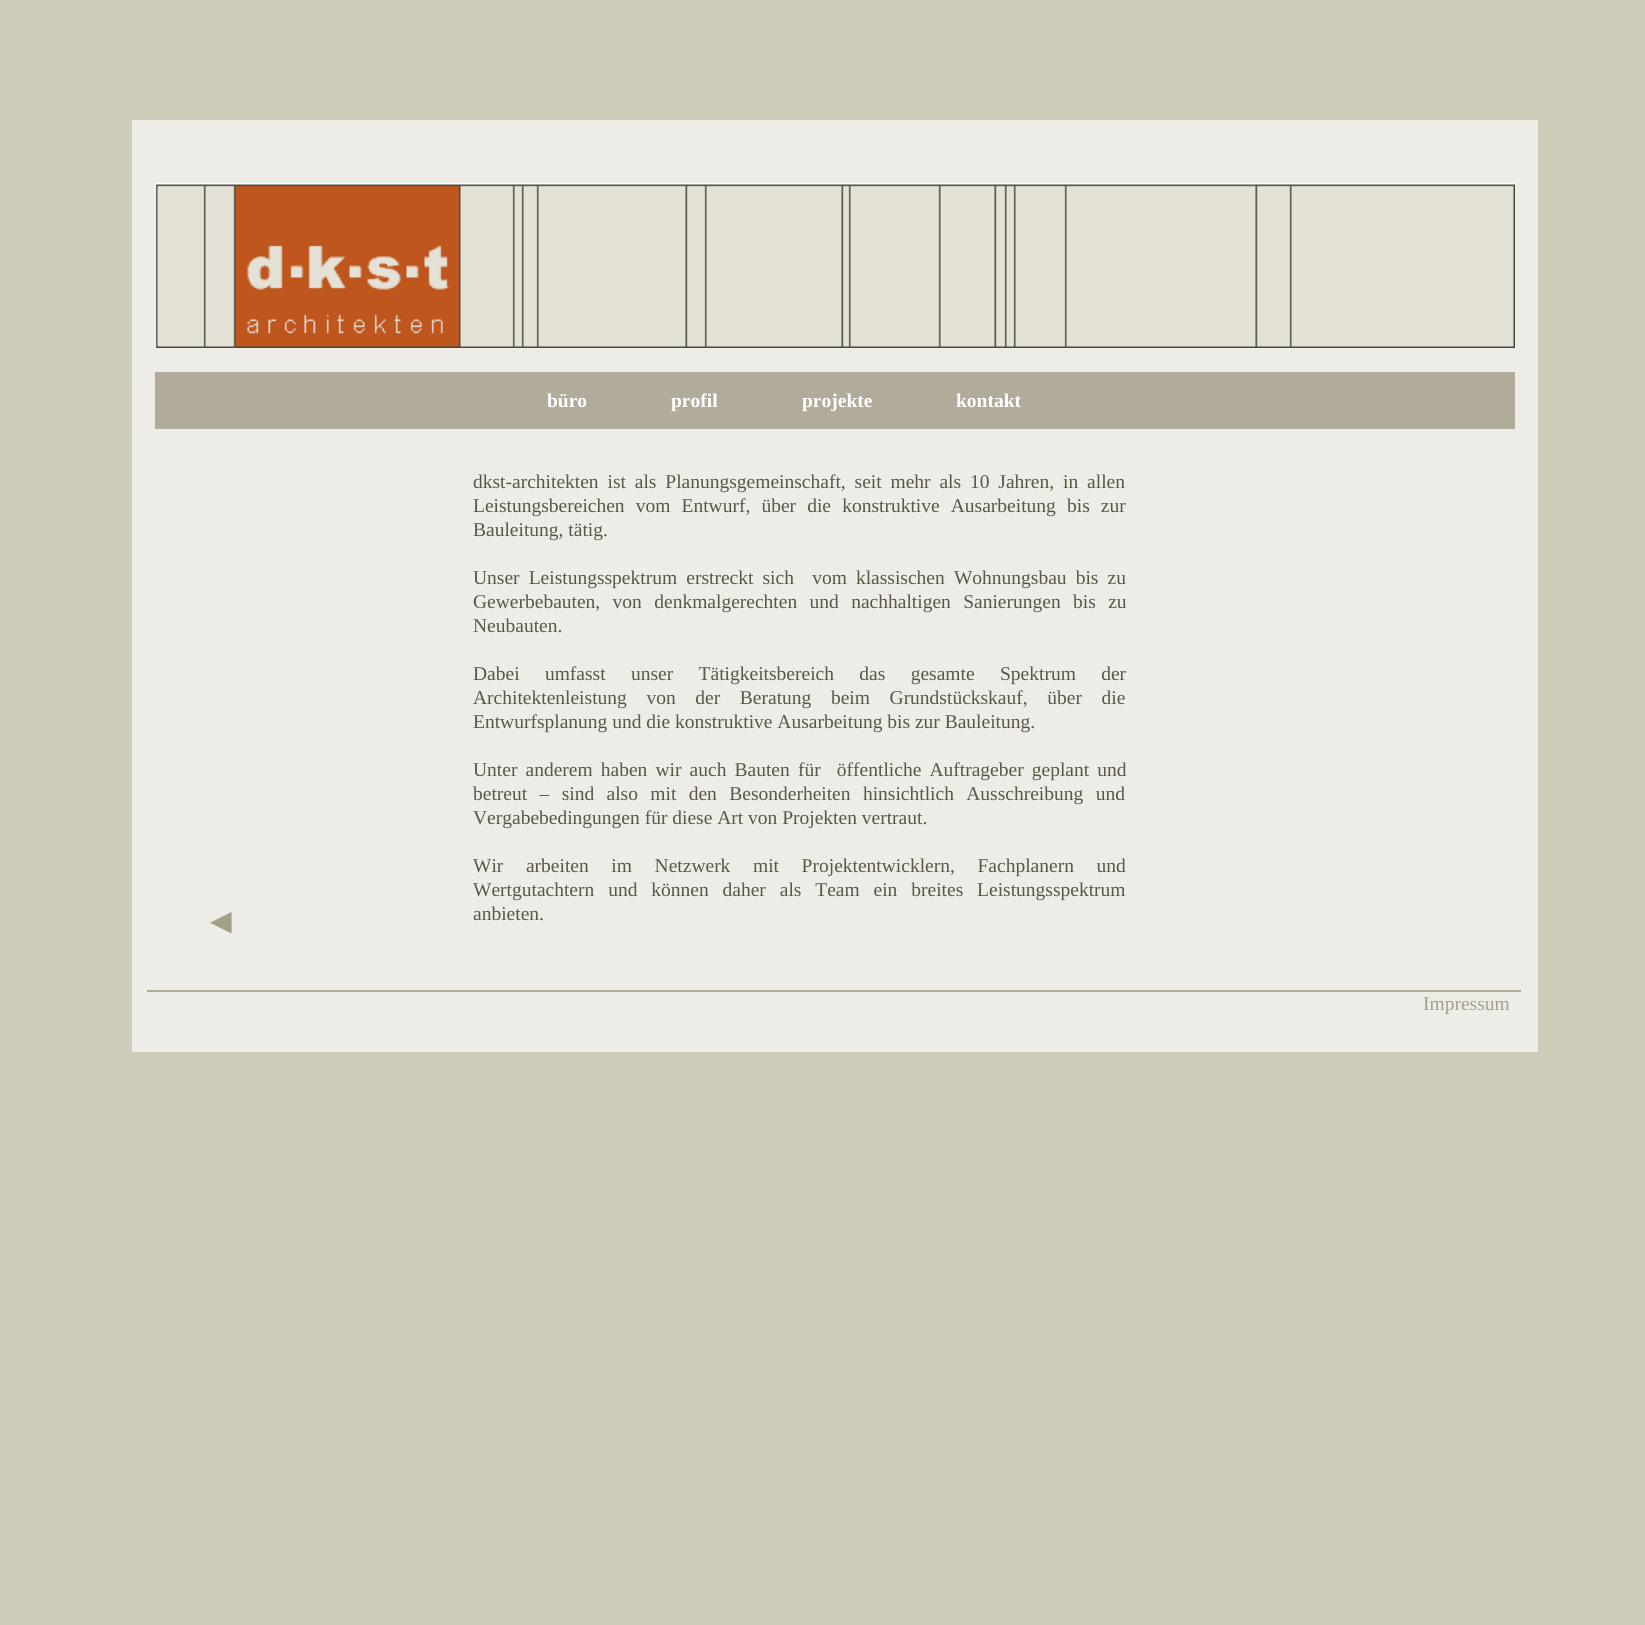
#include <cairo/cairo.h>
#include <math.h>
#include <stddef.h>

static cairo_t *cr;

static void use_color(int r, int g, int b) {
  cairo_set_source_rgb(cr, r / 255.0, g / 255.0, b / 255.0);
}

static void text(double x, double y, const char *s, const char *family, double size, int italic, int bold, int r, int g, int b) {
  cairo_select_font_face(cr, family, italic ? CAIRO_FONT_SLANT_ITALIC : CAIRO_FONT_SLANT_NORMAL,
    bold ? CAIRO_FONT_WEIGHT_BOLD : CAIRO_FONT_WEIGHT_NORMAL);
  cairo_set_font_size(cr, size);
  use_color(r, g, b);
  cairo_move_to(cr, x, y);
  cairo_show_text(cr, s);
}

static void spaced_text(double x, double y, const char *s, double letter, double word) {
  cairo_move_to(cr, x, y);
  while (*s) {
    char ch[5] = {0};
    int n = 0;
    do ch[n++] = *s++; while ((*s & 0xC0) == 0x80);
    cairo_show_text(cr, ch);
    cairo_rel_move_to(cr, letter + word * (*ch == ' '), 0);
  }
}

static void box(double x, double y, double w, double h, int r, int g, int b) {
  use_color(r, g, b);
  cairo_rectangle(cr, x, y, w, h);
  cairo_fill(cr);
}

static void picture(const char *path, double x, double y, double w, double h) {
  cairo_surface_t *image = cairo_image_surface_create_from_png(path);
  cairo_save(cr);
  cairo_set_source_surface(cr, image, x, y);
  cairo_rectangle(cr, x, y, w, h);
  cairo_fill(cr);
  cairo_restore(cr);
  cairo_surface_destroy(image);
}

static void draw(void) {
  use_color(206, 203, 185);
  cairo_paint(cr);
  box(132, 120, 1406, 932, 237, 236, 231);
  picture("img_01.png", 154, 183, 1361, 165);
  box(155, 372, 1360, 57, 178, 171, 154);
  box(147, 990, 1374, 2, 178, 171, 154);
  text(547, 407, "büro", "Liberation Serif", 19.5, 0, 1, 255, 255, 255);
  text(671, 407, "profil", "Liberation Serif", 19.5, 0, 1, 255, 255, 255);
  text(802, 407, "projekte", "Liberation Serif", 19.5, 0, 1, 255, 255, 255);
  text(956, 407, "kontakt", "Liberation Serif", 19.5, 0, 1, 255, 255, 255);
  text(203, 933, "◄", "Liberation Serif", 36, 0, 0, 165, 159, 135);
  cairo_set_font_size(cr, 19.5);
  use_color(91, 87, 68);
  spaced_text(473, 488, "dkst-architekten ist als Planungsgemeinschaft, seit mehr als 10 Jahren, in allen", 0, 4);
  spaced_text(473, 512, "Leistungsbereichen vom Entwurf, über die konstruktive Ausarbeitung bis zur", 0, 6.25);
  text(473, 536, "Bauleitung, tätig.", "Liberation Serif", 19.5, 0, 0, 91, 87, 68);
  spaced_text(473, 584, "Unser Leistungsspektrum erstreckt sich  vom klassischen Wohnungsbau bis zu", 0, 4.25);
  spaced_text(473, 608, "Gewerbebauten, von denkmalgerechten und nachhaltigen Sanierungen bis zu", 0, 7.5);
  text(473, 632, "Neubauten.", "Liberation Serif", 19.5, 0, 0, 91, 87, 68);
  spaced_text(473, 680, "Dabei umfasst unser Tätigkeitsbereich das gesamte Spektrum der", 0, 20.5);
  spaced_text(473, 704, "Architektenleistung von der Beratung beim Grundstückskauf, über die", 0, 14.75);
  text(473, 728, "Entwurfsplanung und die konstruktive Ausarbeitung bis zur Bauleitung.", "Liberation Serif", 19.5, 0, 0, 91, 87, 68);
  spaced_text(473, 776, "Unter anderem haben wir auch Bauten für  öffentliche Auftrageber geplant und", 0, 3.25);
  spaced_text(473, 800, "betreut – sind also mit den Besonderheiten hinsichtlich Ausschreibung und", 0, 7.5);
  text(473, 824, "Vergabebedingungen für diese Art von Projekten vertraut.", "Liberation Serif", 19.5, 0, 0, 91, 87, 68);
  spaced_text(473, 872, "Wir arbeiten im Netzwerk mit Projektentwicklern, Fachplanern und", 0, 17.75);
  spaced_text(473, 896, "Wertgutachtern und können daher als Team ein breites Leistungsspektrum", 0, 9);
  text(473, 920, "anbieten.", "Liberation Serif", 19.5, 0, 0, 91, 87, 68);
  text(1423, 1010, "Impressum", "Liberation Serif", 19.5, 0, 0, 165, 159, 135);
}

int main(void) {
  cairo_surface_t *surface = cairo_image_surface_create(CAIRO_FORMAT_RGB24, 1645, 1625);
  cr = cairo_create(surface);
  cairo_font_options_t *options = cairo_font_options_create();
  cairo_font_options_set_hint_metrics(options, CAIRO_HINT_METRICS_OFF);
  cairo_font_options_set_hint_style(options, CAIRO_HINT_STYLE_NONE);
  cairo_set_font_options(cr, options);
  cairo_set_miter_limit(cr, 4);
  draw();
  cairo_surface_write_to_png(surface, "out.png");
  cairo_font_options_destroy(options);
  cairo_destroy(cr);
  cairo_surface_destroy(surface);
  return 0;
}
